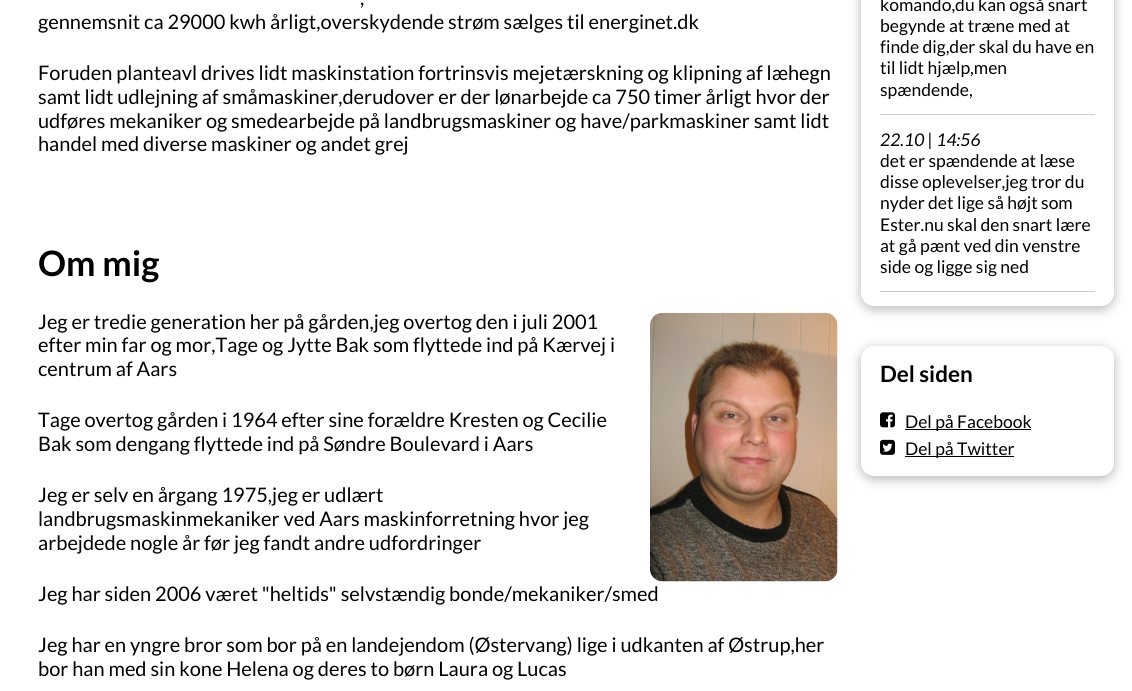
#include <cairo/cairo.h>
#include <math.h>
#include <stddef.h>

static cairo_t *cr;

static void use_color(int r, int g, int b) {
  cairo_set_source_rgb(cr, r / 255.0, g / 255.0, b / 255.0);
}

static void text(double x, double y, const char *s, const char *family, double size, int italic, int bold, int r, int g, int b) {
  cairo_select_font_face(cr, family, italic ? CAIRO_FONT_SLANT_ITALIC : CAIRO_FONT_SLANT_NORMAL,
    bold ? CAIRO_FONT_WEIGHT_BOLD : CAIRO_FONT_WEIGHT_NORMAL);
  cairo_set_font_size(cr, size);
  use_color(r, g, b);
  cairo_move_to(cr, x, y);
  cairo_show_text(cr, s);
}

static void box(double x, double y, double w, double h, int r, int g, int b) {
  use_color(r, g, b);
  cairo_rectangle(cr, x, y, w, h);
  cairo_fill(cr);
}

static void round_rect(double x, double y, double w, double h, double r) {
  cairo_new_sub_path(cr);
  cairo_arc(cr, x + w - r, y + h - r, r, 0, M_PI / 2);
  cairo_arc(cr, x + r, y + h - r, r, M_PI / 2, M_PI);
  cairo_arc(cr, x + r, y + r, r, M_PI, 1.5 * M_PI);
  cairo_arc(cr, x + w - r, y + r, r, 1.5 * M_PI, 2 * M_PI);
  cairo_close_path(cr);
}

static void shadow(double x, double y, double w, double h, double r, double blur, double alpha) {
  cairo_push_group_with_content(cr, CAIRO_CONTENT_ALPHA);
  cairo_set_operator(cr, CAIRO_OPERATOR_SOURCE);
  for (int i = 15; i >= -15 && fmin(w, h) + blur * i / 3 > 0; i -= 2) {
    double e = blur * i / 6;
    cairo_set_source_rgba(cr, 0, 0, 0, alpha * erfc((i - 1) / 8.5) / 2);
    round_rect(x - e, y - e, w + 2 * e, h + 2 * e, fmax(0, fmin(r + e + blur * .6, fmin(w, h) / 2 + e)));
    cairo_fill(cr);
  }
  cairo_pattern_t *soft = cairo_pop_group(cr);
  cairo_mask(cr, soft);
  cairo_pattern_destroy(soft);
}

static void picture(const char *path, double x, double y, double w, double h) {
  cairo_surface_t *image = cairo_image_surface_create_from_png(path);
  cairo_save(cr);
  cairo_set_source_surface(cr, image, x, y);
  cairo_rectangle(cr, x, y, w, h);
  cairo_fill(cr);
  cairo_restore(cr);
  cairo_surface_destroy(image);
}

static void draw(void) {
  use_color(255, 255, 255);
  cairo_paint(cr);
  picture("img_01.png", 650, 312, 188, 270);
  use_color(0, 0, 0);
  shadow(861, -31, 253, 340, 13, 6, 0.29);
  use_color(255, 255, 255);
  round_rect(861, -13, 253, 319, 13);
  cairo_fill(cr);
  box(880, 114, 215, 1, 204, 204, 204);
  box(880, 291, 215, 1, 204, 204, 204);
  use_color(0, 0, 0);
  shadow(861, 349, 253, 130, 13, 6, 0.29);
  use_color(255, 255, 255);
  round_rect(861, 346, 253, 130, 13);
  cairo_fill(cr);
  picture("img_02.png", 880, 412, 15, 16);
  box(905, 429, 126, 1, 0, 0, 0);
  picture("img_03.png", 880, 439, 15, 16);
  box(905, 456, 109, 1, 0, 0, 0);
  text(360, 5, ",", "Lato", 20, 0, 0, 0, 0, 0);
  text(38, 29, "gennemsnit ca 29000 kwh årligt,overskydende strøm sælges til energinet.dk", "Lato", 20, 0, 0, 0, 0, 0);
  text(38, 80, "Foruden planteavl drives lidt maskinstation fortrinsvis mejetærskning og klipning af læhegn", "Lato", 20, 0, 0, 0, 0, 0);
  text(38, 104, "samt lidt udlejning af småmaskiner,derudover er der lønarbejde ca 750 timer årligt hvor der", "Lato", 20, 0, 0, 0, 0, 0);
  text(38, 128, "udføres mekaniker og smedearbejde på landbrugsmaskiner og have/parkmaskiner samt lidt", "Lato", 20, 0, 0, 0, 0, 0);
  text(38, 151, "handel med diverse maskiner og andet grej", "Lato", 20, 0, 0, 0, 0, 0);
  text(38, 276, "Om mig", "Lato", 35, 0, 1, 0, 0, 0);
  text(38, 329, "Jeg er tredie generation her på gården,jeg overtog den i juli 2001", "Lato", 20, 0, 0, 0, 0, 0);
  text(38, 352, "efter min far og mor,Tage og Jytte Bak som flyttede ind på Kærvej i", "Lato", 20, 0, 0, 0, 0, 0);
  text(38, 376, "centrum af Aars", "Lato", 20, 0, 0, 0, 0, 0);
  text(38, 427, "Tage overtog gården i 1964 efter sine forældre Kresten og Cecilie", "Lato", 20, 0, 0, 0, 0, 0);
  text(38, 451, "Bak som dengang flyttede ind på Søndre Boulevard i Aars", "Lato", 20, 0, 0, 0, 0, 0);
  text(38, 502, "Jeg er selv en årgang 1975,jeg er udlært", "Lato", 20, 0, 0, 0, 0, 0);
  text(38, 526, "landbrugsmaskinmekaniker ved Aars maskinforretning hvor jeg", "Lato", 20, 0, 0, 0, 0, 0);
  text(38, 550, "arbejdede nogle år før jeg fandt andre udfordringer", "Lato", 20, 0, 0, 0, 0, 0);
  text(38, 601, "Jeg har siden 2006 været \"heltids\" selvstændig bonde/mekaniker/smed", "Lato", 20, 0, 0, 0, 0, 0);
  text(38, 652, "Jeg har en yngre bror som bor på en landejendom (Østervang) lige i udkanten af Østrup,her", "Lato", 20, 0, 0, 0, 0, 0);
  text(38, 676, "bor han med sin kone Helena og deres to børn Laura og Lucas", "Lato", 20, 0, 0, 0, 0, 0);
  text(880, 11, "komando,du kan også snart", "Lato", 17.5, 0, 0, 0, 0, 0);
  text(880, 32, "begynde at træne med at", "Lato", 17.5, 0, 0, 0, 0, 0);
  text(880, 53, "finde dig,der skal du have en", "Lato", 17.5, 0, 0, 0, 0, 0);
  text(880, 74, "til lidt hjælp,men", "Lato", 17.5, 0, 0, 0, 0, 0);
  text(880, 96, "spændende,", "Lato", 17.5, 0, 0, 0, 0, 0);
  text(880, 146, "22.10 | 14:56", "Lato", 17.5, 1, 0, 0, 0, 0);
  text(880, 167, "det er spændende at læse", "Lato", 17.5, 0, 0, 0, 0, 0);
  text(880, 188, "disse oplevelser,jeg tror du", "Lato", 17.5, 0, 0, 0, 0, 0);
  text(880, 209, "nyder det lige så højt som", "Lato", 17.5, 0, 0, 0, 0, 0);
  text(880, 231, "Ester.nu skal den snart lære", "Lato", 17.5, 0, 0, 0, 0, 0);
  text(880, 252, "at gå pænt ved din venstre", "Lato", 17.5, 0, 0, 0, 0, 0);
  text(880, 273, "side og ligge sig ned", "Lato", 17.5, 0, 0, 0, 0, 0);
  text(880, 382, "Del siden", "Lato", 22.5, 0, 1, 0, 0, 0);
  text(905, 428, "Del på Facebook", "Lato", 17.5, 0, 0, 0, 0, 0);
  text(905, 455, "Del på Twitter", "Lato", 17.5, 0, 0, 0, 0, 0);
}

int main(void) {
  cairo_surface_t *surface = cairo_image_surface_create(CAIRO_FORMAT_RGB24, 1132, 691);
  cr = cairo_create(surface);
  cairo_font_options_t *options = cairo_font_options_create();
  cairo_font_options_set_hint_metrics(options, CAIRO_HINT_METRICS_OFF);
  cairo_font_options_set_hint_style(options, CAIRO_HINT_STYLE_NONE);
  cairo_set_font_options(cr, options);
  cairo_set_miter_limit(cr, 4);
  draw();
  cairo_surface_write_to_png(surface, "out.png");
  cairo_font_options_destroy(options);
  cairo_destroy(cr);
  cairo_surface_destroy(surface);
  return 0;
}
